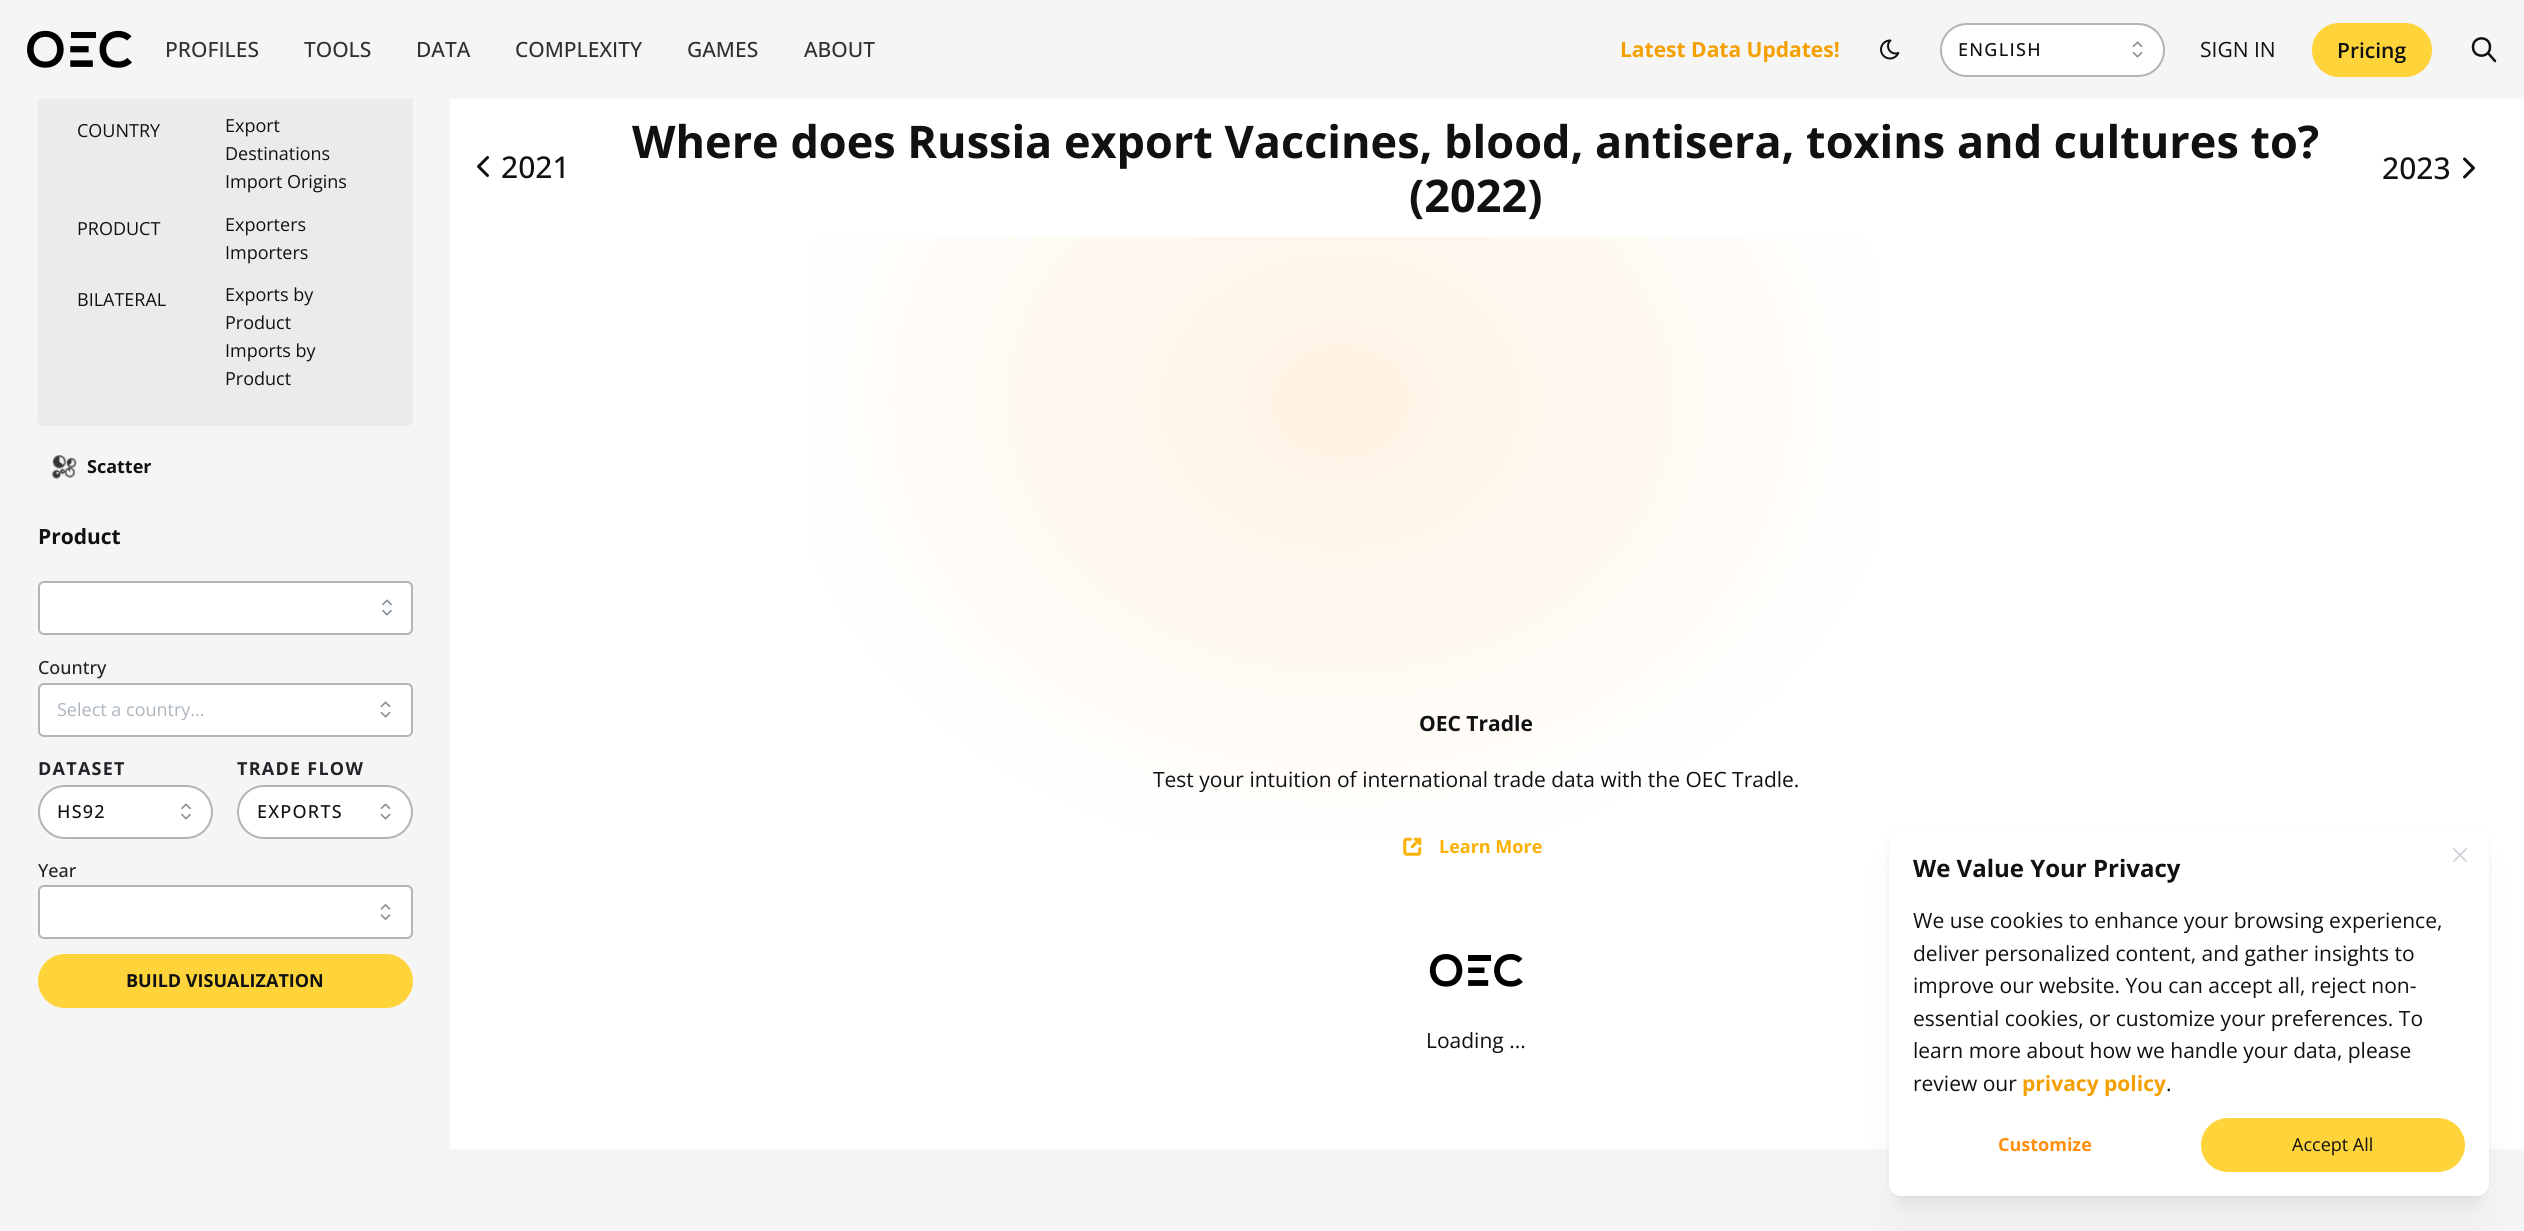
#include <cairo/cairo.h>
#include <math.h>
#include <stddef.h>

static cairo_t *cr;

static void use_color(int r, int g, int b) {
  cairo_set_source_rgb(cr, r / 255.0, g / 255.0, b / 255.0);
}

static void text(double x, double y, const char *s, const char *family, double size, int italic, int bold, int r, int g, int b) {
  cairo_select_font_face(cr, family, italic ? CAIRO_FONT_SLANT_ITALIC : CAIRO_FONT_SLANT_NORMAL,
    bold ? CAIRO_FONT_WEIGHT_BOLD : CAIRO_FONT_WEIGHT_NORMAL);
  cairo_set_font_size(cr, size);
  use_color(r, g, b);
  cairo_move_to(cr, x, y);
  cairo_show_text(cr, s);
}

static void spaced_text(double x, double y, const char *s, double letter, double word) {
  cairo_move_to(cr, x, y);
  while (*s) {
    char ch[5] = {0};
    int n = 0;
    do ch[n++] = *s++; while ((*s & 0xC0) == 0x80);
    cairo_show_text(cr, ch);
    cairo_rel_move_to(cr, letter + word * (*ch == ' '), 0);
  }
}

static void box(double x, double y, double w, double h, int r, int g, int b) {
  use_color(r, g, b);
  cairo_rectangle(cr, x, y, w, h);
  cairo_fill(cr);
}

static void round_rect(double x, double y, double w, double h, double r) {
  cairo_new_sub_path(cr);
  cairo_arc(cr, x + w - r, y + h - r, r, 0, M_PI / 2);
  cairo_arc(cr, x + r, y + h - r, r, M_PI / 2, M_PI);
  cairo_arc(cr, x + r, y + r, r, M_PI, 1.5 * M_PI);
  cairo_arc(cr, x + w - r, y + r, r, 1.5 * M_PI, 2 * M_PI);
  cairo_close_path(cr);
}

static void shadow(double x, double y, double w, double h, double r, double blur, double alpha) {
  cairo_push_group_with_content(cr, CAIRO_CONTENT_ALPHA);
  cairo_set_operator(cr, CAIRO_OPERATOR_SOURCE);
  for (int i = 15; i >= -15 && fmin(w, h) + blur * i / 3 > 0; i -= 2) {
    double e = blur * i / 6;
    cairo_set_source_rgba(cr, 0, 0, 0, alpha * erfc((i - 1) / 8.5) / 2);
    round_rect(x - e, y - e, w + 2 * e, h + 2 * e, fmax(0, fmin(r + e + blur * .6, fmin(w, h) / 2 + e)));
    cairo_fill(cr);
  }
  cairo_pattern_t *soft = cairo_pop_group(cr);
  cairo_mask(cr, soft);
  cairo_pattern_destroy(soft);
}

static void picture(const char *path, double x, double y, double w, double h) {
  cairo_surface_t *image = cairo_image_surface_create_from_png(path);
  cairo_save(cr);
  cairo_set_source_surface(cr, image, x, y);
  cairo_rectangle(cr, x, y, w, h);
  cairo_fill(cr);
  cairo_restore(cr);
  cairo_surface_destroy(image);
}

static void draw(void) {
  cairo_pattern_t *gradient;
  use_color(255, 255, 255);
  cairo_paint(cr);
  box(0, 99, 450, 1050, 245, 245, 245);
  use_color(235, 235, 235);
  round_rect(38, 80, 375, 346, 6);
  cairo_fill(cr);
  box(0, 0, 2524, 99, 245, 245, 245);
  picture("img_01.png", 27, 30, 105, 38);
  picture("img_02.png", 1880, 39, 20, 21);
  use_color(255, 255, 255);
  round_rect(1941, 24, 223, 52, 26);
  cairo_fill_preserve(cr);
  use_color(180, 180, 180);
  cairo_stroke(cr);
  picture("img_03.png", 2132, 41, 11, 17);
  use_color(255, 212, 59);
  round_rect(2312, 23, 120, 54, 27);
  cairo_fill(cr);
  cairo_new_path(cr);
  cairo_move_to(cr, 2473, 47);
  cairo_curve_to(cr, 2473, 58.5, 2490, 58.5, 2490, 47);
  cairo_curve_to(cr, 2490, 35.5, 2473, 35.5, 2473, 47);
  cairo_move_to(cr, 2495, 61);
  cairo_line_to(cr, 2488, 53);
  use_color(16, 17, 18);
  cairo_set_line_width(cr, 2.5);
  cairo_set_line_cap(cr, CAIRO_LINE_CAP_ROUND);
  cairo_set_line_join(cr, CAIRO_LINE_JOIN_ROUND);
  cairo_stroke(cr);
  picture("img_04.png", 52, 455, 25, 24);
  use_color(255, 255, 255);
  round_rect(39, 582, 373, 52, 5);
  cairo_fill_preserve(cr);
  use_color(180, 180, 180);
  cairo_set_line_width(cr, 2);
  cairo_set_line_cap(cr, CAIRO_LINE_CAP_BUTT);
  cairo_set_line_join(cr, CAIRO_LINE_JOIN_MITER);
  cairo_stroke(cr);
  picture("img_05.png", 382, 599, 10, 17);
  use_color(255, 255, 255);
  round_rect(39, 684, 373, 52, 5);
  cairo_fill_preserve(cr);
  use_color(180, 180, 180);
  cairo_stroke(cr);
  picture("img_03.png", 380, 701, 11, 17);
  use_color(255, 255, 255);
  round_rect(39, 786, 173, 52, 26);
  cairo_fill_preserve(cr);
  use_color(180, 180, 180);
  cairo_stroke(cr);
  picture("img_05.png", 181, 803, 10, 17);
  use_color(255, 255, 255);
  round_rect(238, 786, 174, 52, 26);
  cairo_fill_preserve(cr);
  use_color(180, 180, 180);
  cairo_stroke(cr);
  picture("img_03.png", 380, 803, 11, 17);
  use_color(255, 255, 255);
  round_rect(39, 886, 373, 52, 5);
  cairo_fill_preserve(cr);
  use_color(180, 180, 180);
  cairo_stroke(cr);
  picture("img_06.png", 380, 904, 11, 16);
  use_color(255, 212, 59);
  round_rect(38, 954, 375, 54, 27);
  cairo_fill(cr);
  cairo_new_path(cr);
  cairo_move_to(cr, 487.5, 157.5);
  cairo_line_to(cr, 478.5, 166.5);
  cairo_line_to(cr, 487.5, 175.5);
  use_color(16, 17, 18);
  cairo_set_line_width(cr, 3);
  cairo_set_line_cap(cr, CAIRO_LINE_CAP_ROUND);
  cairo_set_line_join(cr, CAIRO_LINE_JOIN_ROUND);
  cairo_stroke(cr);
  cairo_new_path(cr);
  cairo_move_to(cr, 2464.5, 159);
  cairo_line_to(cr, 2473.5, 168);
  cairo_line_to(cr, 2464.5, 177);
  cairo_stroke(cr);
  gradient = cairo_pattern_create_radial(0, 0, 0, 0, 0, 1);
  cairo_pattern_set_matrix(gradient, &(cairo_matrix_t){1.0 / 585, 0, 0, 1.0 / 480, -1.0 * 1341 / 585, -1.0 * 401 / 480});
  cairo_pattern_add_color_stop_rgba(gradient, 0, 1, 0.949, 0.89, 1);
  cairo_pattern_add_color_stop_rgba(gradient, 1, 1, 1, 1, 1);
  cairo_set_source(cr, gradient);
  cairo_pattern_destroy(gradient);
  cairo_rectangle(cr, 808, 237, 1066, 600);
  cairo_fill(cr);
  picture("img_07.png", 1403, 837, 19, 19);
  picture("img_08.png", 1429, 954, 94, 33);
  box(0, 1149, 2524, 82, 245, 245, 245);
  use_color(0, 0, 0);
  shadow(1896, 849, 585, 354, 5, 7.5, 0.04);
  shadow(1896, 864, 585, 354, 5, 19, 0.05);
  shadow(1889, 828, 600, 369, 12, 2, 0.05);
  use_color(255, 255, 255);
  round_rect(1889, 827, 600, 369, 12);
  cairo_fill(cr);
  picture("img_09.png", 2453, 848, 14, 14);
  use_color(255, 212, 59);
  round_rect(2201, 1118, 264, 54, 27);
  cairo_fill(cr);
  text(165, 57, "PROFILES", "Open Sans Medium", 21, 0, 0, 49, 49, 49);
  text(304, 57, "TOOLS", "Open Sans Medium", 21, 0, 0, 49, 49, 49);
  text(416, 57, "DATA", "Open Sans Medium", 21, 0, 0, 49, 49, 49);
  text(515, 57, "COMPLEXITY", "Open Sans Medium", 21, 0, 0, 49, 49, 49);
  text(687, 57, "GAMES", "Open Sans Medium", 21, 0, 0, 49, 49, 49);
  text(804, 57, "ABOUT", "Open Sans Medium", 21, 0, 0, 49, 49, 49);
  text(1620, 57, "Latest Data Updates!", "Open Sans", 21, 0, 1, 245, 159, 0);
  cairo_select_font_face(cr, "Open Sans Medium", CAIRO_FONT_SLANT_NORMAL, CAIRO_FONT_WEIGHT_NORMAL);
  cairo_set_font_size(cr, 18);
  use_color(16, 17, 18);
  spaced_text(1958, 56, "ENGLISH", 1.25, 0);
  text(2200, 57, "SIGN IN", "Open Sans", 21, 0, 0, 16, 17, 18);
  text(2337, 58, "Pricing", "Open Sans SemiBold", 21, 0, 0, 16, 17, 18);
  text(77, 137, "COUNTRY", "Open Sans", 18, 0, 0, 16, 17, 18);
  text(225, 132, "Export", "Open Sans", 18, 0, 0, 16, 17, 18);
  text(225, 160, "Destinations", "Open Sans", 18, 0, 0, 16, 17, 18);
  text(225, 188, "Import Origins", "Open Sans", 18, 0, 0, 16, 17, 18);
  text(77, 235, "PRODUCT", "Open Sans", 18, 0, 0, 16, 17, 18);
  text(225, 231, "Exporters", "Open Sans", 18, 0, 0, 16, 17, 18);
  text(225, 259, "Importers", "Open Sans", 18, 0, 0, 16, 17, 18);
  text(77, 306, "BILATERAL", "Open Sans", 18, 0, 0, 16, 17, 18);
  text(225, 301, "Exports by", "Open Sans", 18, 0, 0, 16, 17, 18);
  text(225, 329, "Product", "Open Sans", 18, 0, 0, 16, 17, 18);
  text(225, 357, "Imports by", "Open Sans", 18, 0, 0, 16, 17, 18);
  text(225, 385, "Product", "Open Sans", 18, 0, 0, 16, 17, 18);
  text(87, 473, "Scatter", "Open Sans", 18, 0, 1, 16, 17, 18);
  text(38, 544, "Product", "Open Sans", 21, 0, 1, 16, 17, 18);
  text(38, 674, "Country", "Open Sans Medium", 18, 0, 0, 33, 37, 41);
  cairo_save(cr);
  cairo_rectangle(cr, 57, 699, 240, 21);
  cairo_clip(cr);
  text(57, 716, "Select a country...", "Open Sans", 18, 0, 0, 173, 181, 189);
  cairo_restore(cr);
  cairo_select_font_face(cr, "Open Sans", CAIRO_FONT_SLANT_NORMAL, CAIRO_FONT_WEIGHT_BOLD);
  spaced_text(38, 775, "DATASET", 1.25, 0);
  cairo_select_font_face(cr, "Open Sans Medium", CAIRO_FONT_SLANT_NORMAL, CAIRO_FONT_WEIGHT_NORMAL);
  use_color(16, 17, 18);
  spaced_text(57, 818, "HS92", 1.25, 0);
  cairo_select_font_face(cr, "Open Sans", CAIRO_FONT_SLANT_NORMAL, CAIRO_FONT_WEIGHT_BOLD);
  use_color(33, 37, 41);
  spaced_text(237, 775, "TRADE FLOW", 1.25, 0);
  cairo_select_font_face(cr, "Open Sans Medium", CAIRO_FONT_SLANT_NORMAL, CAIRO_FONT_WEIGHT_NORMAL);
  use_color(16, 17, 18);
  spaced_text(257, 818, "EXPORTS", 1.25, 0);
  text(38, 877, "Year", "Open Sans Medium", 18, 0, 0, 33, 37, 41);
  text(126, 987, "BUILD VISUALIZATION", "Open Sans", 18, 0, 1, 16, 17, 18);
  text(501, 178, "2021", "Open Sans Medium", 30, 0, 0, 16, 17, 18);
  text(632, 158, "Where does Russia export Vaccines, blood, antisera, toxins and cultures to?", "Open Sans", 45, 0, 1, 16, 17, 18);
  text(1409, 212, "(2022)", "Open Sans", 45, 0, 1, 16, 17, 18);
  text(2382, 179, "2023", "Open Sans Medium", 30, 0, 0, 16, 17, 18);
  text(1419, 731, "OEC Tradle", "Open Sans", 21, 0, 1, 16, 17, 18);
  text(1153, 787, "Test your intuition of international trade data with the OEC Tradle.", "Open Sans", 21, 0, 0, 16, 17, 18);
  text(1439, 853, "Learn More", "Open Sans", 18, 0, 1, 250, 176, 5);
  text(1426, 1048, "Loading ...", "Open Sans", 21, 0, 0, 16, 17, 18);
  text(1913, 877, "We Value Your Privacy", "Open Sans", 24, 0, 1, 16, 17, 18);
  text(1913, 928, "We use cookies to enhance your browsing experience,", "Open Sans", 21, 0, 0, 16, 17, 18);
  text(1913, 961, "deliver personalized content, and gather insights to", "Open Sans", 21, 0, 0, 16, 17, 18);
  text(1913, 993, "improve our website. You can accept all, reject non-", "Open Sans", 21, 0, 0, 16, 17, 18);
  text(1913, 1026, "essential cookies, or customize your preferences. To", "Open Sans", 21, 0, 0, 16, 17, 18);
  text(1913, 1058, "learn more about how we handle your data, please", "Open Sans", 21, 0, 0, 16, 17, 18);
  text(1913, 1091, "review our", "Open Sans", 21, 0, 0, 16, 17, 18);
  text(2022, 1091, "privacy policy", "Open Sans", 21, 0, 1, 245, 159, 0);
  text(2166, 1091, ".", "Open Sans", 21, 0, 0, 16, 17, 18);
  text(1998, 1151, "Customize", "Open Sans", 18, 0, 1, 255, 143, 13);
  text(2292, 1151, "Accept All", "Open Sans", 18, 0, 0, 16, 17, 18);
}

int main(void) {
  cairo_surface_t *surface = cairo_image_surface_create(CAIRO_FORMAT_RGB24, 2524, 1231);
  cr = cairo_create(surface);
  cairo_font_options_t *options = cairo_font_options_create();
  cairo_font_options_set_hint_metrics(options, CAIRO_HINT_METRICS_OFF);
  cairo_font_options_set_hint_style(options, CAIRO_HINT_STYLE_NONE);
  cairo_set_font_options(cr, options);
  cairo_set_miter_limit(cr, 4);
  draw();
  cairo_surface_write_to_png(surface, "out.png");
  cairo_font_options_destroy(options);
  cairo_destroy(cr);
  cairo_surface_destroy(surface);
  return 0;
}
